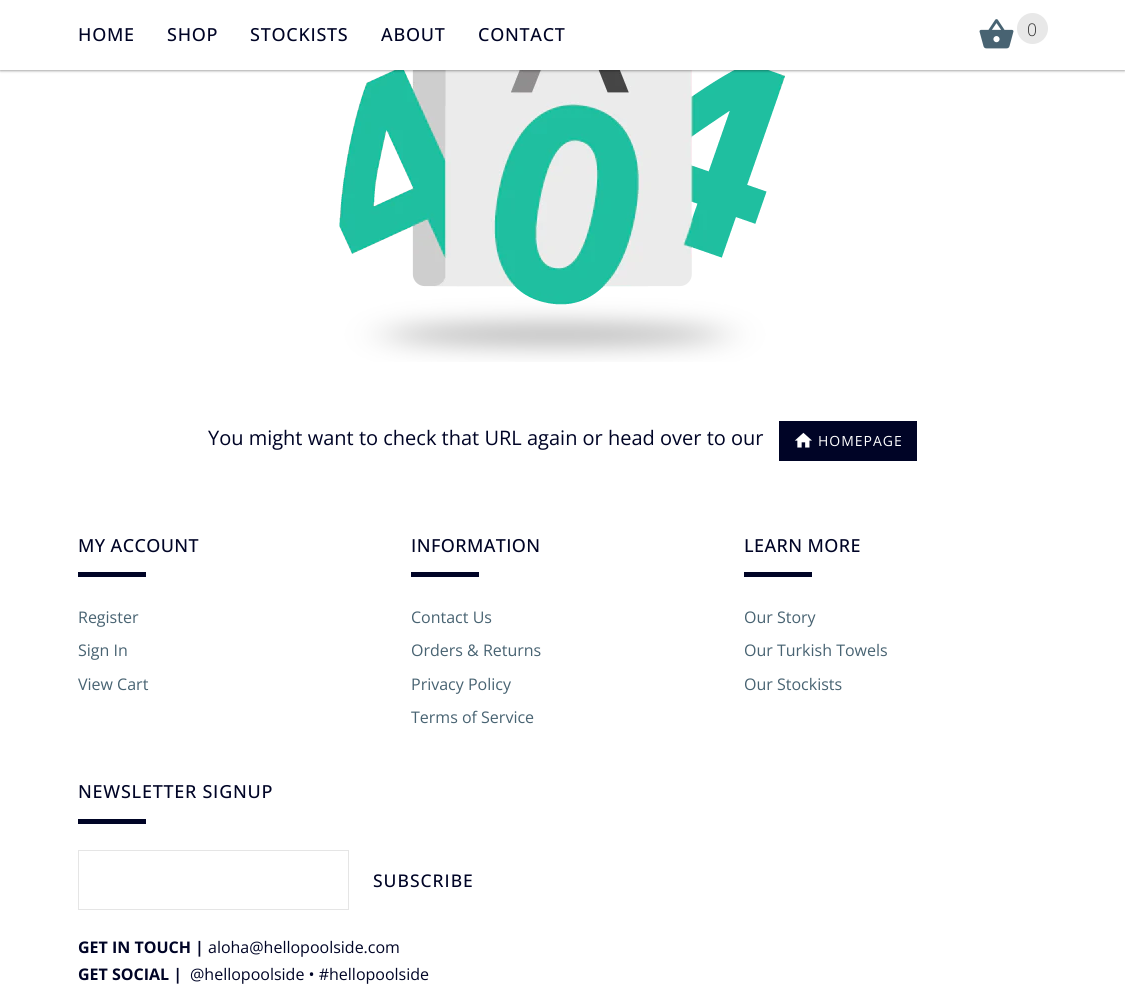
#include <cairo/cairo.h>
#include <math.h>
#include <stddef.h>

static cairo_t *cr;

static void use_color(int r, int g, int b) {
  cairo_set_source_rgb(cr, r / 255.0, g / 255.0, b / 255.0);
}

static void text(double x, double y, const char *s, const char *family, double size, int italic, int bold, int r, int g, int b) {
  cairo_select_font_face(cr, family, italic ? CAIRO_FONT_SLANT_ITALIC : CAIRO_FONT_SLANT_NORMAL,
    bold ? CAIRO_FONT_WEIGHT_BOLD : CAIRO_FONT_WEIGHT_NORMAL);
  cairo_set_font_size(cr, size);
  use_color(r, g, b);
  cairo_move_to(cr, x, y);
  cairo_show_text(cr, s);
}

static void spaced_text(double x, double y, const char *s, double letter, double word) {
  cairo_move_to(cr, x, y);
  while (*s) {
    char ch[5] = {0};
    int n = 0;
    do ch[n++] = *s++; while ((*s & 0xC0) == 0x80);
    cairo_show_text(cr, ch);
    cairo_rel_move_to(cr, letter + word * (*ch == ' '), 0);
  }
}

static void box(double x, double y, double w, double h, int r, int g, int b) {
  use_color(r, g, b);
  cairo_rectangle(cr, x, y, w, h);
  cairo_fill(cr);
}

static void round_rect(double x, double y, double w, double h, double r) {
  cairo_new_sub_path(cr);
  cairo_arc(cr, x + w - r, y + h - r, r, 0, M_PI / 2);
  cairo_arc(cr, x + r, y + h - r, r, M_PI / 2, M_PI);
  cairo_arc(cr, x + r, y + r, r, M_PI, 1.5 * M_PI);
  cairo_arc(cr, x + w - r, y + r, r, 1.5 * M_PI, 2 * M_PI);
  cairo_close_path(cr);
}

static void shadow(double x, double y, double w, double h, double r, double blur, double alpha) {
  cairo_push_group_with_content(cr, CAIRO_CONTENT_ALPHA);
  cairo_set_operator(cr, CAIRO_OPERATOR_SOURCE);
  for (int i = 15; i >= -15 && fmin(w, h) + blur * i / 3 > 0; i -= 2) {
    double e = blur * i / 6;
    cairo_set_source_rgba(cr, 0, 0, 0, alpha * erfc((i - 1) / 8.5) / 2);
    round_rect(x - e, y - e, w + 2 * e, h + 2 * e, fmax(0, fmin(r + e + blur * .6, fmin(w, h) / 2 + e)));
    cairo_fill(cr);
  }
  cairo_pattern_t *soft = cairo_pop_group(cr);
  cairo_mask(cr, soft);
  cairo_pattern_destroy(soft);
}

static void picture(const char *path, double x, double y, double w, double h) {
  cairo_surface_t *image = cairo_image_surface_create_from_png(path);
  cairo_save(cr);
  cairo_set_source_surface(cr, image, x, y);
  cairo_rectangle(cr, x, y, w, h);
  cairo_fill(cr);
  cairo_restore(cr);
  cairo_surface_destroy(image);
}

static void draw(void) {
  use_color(255, 255, 255);
  cairo_paint(cr);
  picture("img_02.png", 339, 70, 446, 292);
  use_color(0, 0, 0);
  shadow(0, 1, 1125, 70, 0, 1, 0.24);
  shadow(0, 1, 1125, 70, 0, 1.5, 0.12);
  box(0, 0, 1125, 70, 255, 255, 255);
  picture("img_01.png", 979, 19, 35, 30);
  use_color(232, 232, 232);
  cairo_arc(cr, 1032.5, 28.5, 15.5, 0, 2 * M_PI);
  cairo_fill(cr);
  box(779, 421, 138, 40, 0, 4, 38);
  picture("img_03.png", 794, 432, 18, 16);
  box(78, 572, 68, 5, 0, 4, 38);
  box(411, 572, 68, 5, 0, 4, 38);
  box(744, 572, 68, 5, 0, 4, 38);
  box(78, 819, 68, 5, 0, 4, 38);
  cairo_rectangle(cr, 78.5, 850.5, 270, 59);
  use_color(229, 229, 229);
  cairo_set_line_width(cr, 1);
  cairo_stroke(cr);
  cairo_select_font_face(cr, "Open Sans Medium", CAIRO_FONT_SLANT_NORMAL, CAIRO_FONT_WEIGHT_NORMAL);
  cairo_set_font_size(cr, 18);
  use_color(0, 4, 38);
  spaced_text(78, 41, "HOME", 0.75, 0);
  spaced_text(167, 41, "SHOP", 0.75, 0);
  spaced_text(250, 41, "STOCKISTS", 0.75, 0);
  spaced_text(381, 41, "ABOUT", 0.75, 0);
  spaced_text(478, 41, "CONTACT", 0.75, 0);
  text(1027, 36, "0", "Open Sans Light", 17.5, 0, 0, 51, 51, 51);
  text(208, 445, "You might want to check that URL again or head over to our", "Open Sans", 20, 0, 0, 0, 4, 38);
  cairo_set_font_size(cr, 14);
  use_color(255, 255, 255);
  spaced_text(818, 446, "HOMEPAGE", 1, 0);
  cairo_select_font_face(cr, "Open Sans Medium", CAIRO_FONT_SLANT_NORMAL, CAIRO_FONT_WEIGHT_NORMAL);
  cairo_set_font_size(cr, 18);
  use_color(0, 4, 38);
  spaced_text(78, 552, "MY ACCOUNT", 0.4, 0);
  text(78, 623, "Register", "Open Sans", 16, 0, 0, 72, 99, 114);
  text(78, 656, "Sign In", "Open Sans", 16, 0, 0, 72, 99, 114);
  text(78, 690, "View Cart", "Open Sans", 16, 0, 0, 72, 99, 114);
  cairo_select_font_face(cr, "Open Sans Medium", CAIRO_FONT_SLANT_NORMAL, CAIRO_FONT_WEIGHT_NORMAL);
  cairo_set_font_size(cr, 18);
  use_color(0, 4, 38);
  spaced_text(411, 552, "INFORMATION", 0.4, 0);
  text(411, 623, "Contact Us", "Open Sans", 16, 0, 0, 72, 99, 114);
  text(411, 656, "Orders & Returns", "Open Sans", 16, 0, 0, 72, 99, 114);
  text(411, 690, "Privacy Policy", "Open Sans", 16, 0, 0, 72, 99, 114);
  text(411, 723, "Terms of Service", "Open Sans", 16, 0, 0, 72, 99, 114);
  cairo_select_font_face(cr, "Open Sans Medium", CAIRO_FONT_SLANT_NORMAL, CAIRO_FONT_WEIGHT_NORMAL);
  cairo_set_font_size(cr, 18);
  use_color(0, 4, 38);
  spaced_text(744, 552, "LEARN MORE", 0.4, 0);
  text(744, 623, "Our Story", "Open Sans", 16, 0, 0, 72, 99, 114);
  text(744, 656, "Our Turkish Towels", "Open Sans", 16, 0, 0, 72, 99, 114);
  text(744, 690, "Our Stockists", "Open Sans", 16, 0, 0, 72, 99, 114);
  cairo_select_font_face(cr, "Open Sans Medium", CAIRO_FONT_SLANT_NORMAL, CAIRO_FONT_WEIGHT_NORMAL);
  cairo_set_font_size(cr, 18);
  use_color(0, 4, 38);
  spaced_text(78, 798, "NEWSLETTER SIGNUP", 0.75, 0);
  cairo_set_font_size(cr, 17.5);
  spaced_text(373, 887, "SUBSCRIBE", 1, 0);
  text(78, 953, "GET IN TOUCH |", "Open Sans", 16, 0, 1, 0, 4, 38);
  text(208, 953, "aloha@hellopoolside.com", "Open Sans", 16, 0, 0, 0, 4, 38);
  text(78, 980, "GET SOCIAL |", "Open Sans", 16, 0, 1, 0, 4, 38);
  text(190, 980, "@hellopoolside • #hellopoolside", "Open Sans", 16, 0, 0, 0, 4, 38);
}

int main(void) {
  cairo_surface_t *surface = cairo_image_surface_create(CAIRO_FORMAT_RGB24, 1125, 987);
  cr = cairo_create(surface);
  cairo_font_options_t *options = cairo_font_options_create();
  cairo_font_options_set_hint_metrics(options, CAIRO_HINT_METRICS_OFF);
  cairo_font_options_set_hint_style(options, CAIRO_HINT_STYLE_NONE);
  cairo_set_font_options(cr, options);
  cairo_set_miter_limit(cr, 4);
  draw();
  cairo_surface_write_to_png(surface, "out.png");
  cairo_font_options_destroy(options);
  cairo_destroy(cr);
  cairo_surface_destroy(surface);
  return 0;
}
